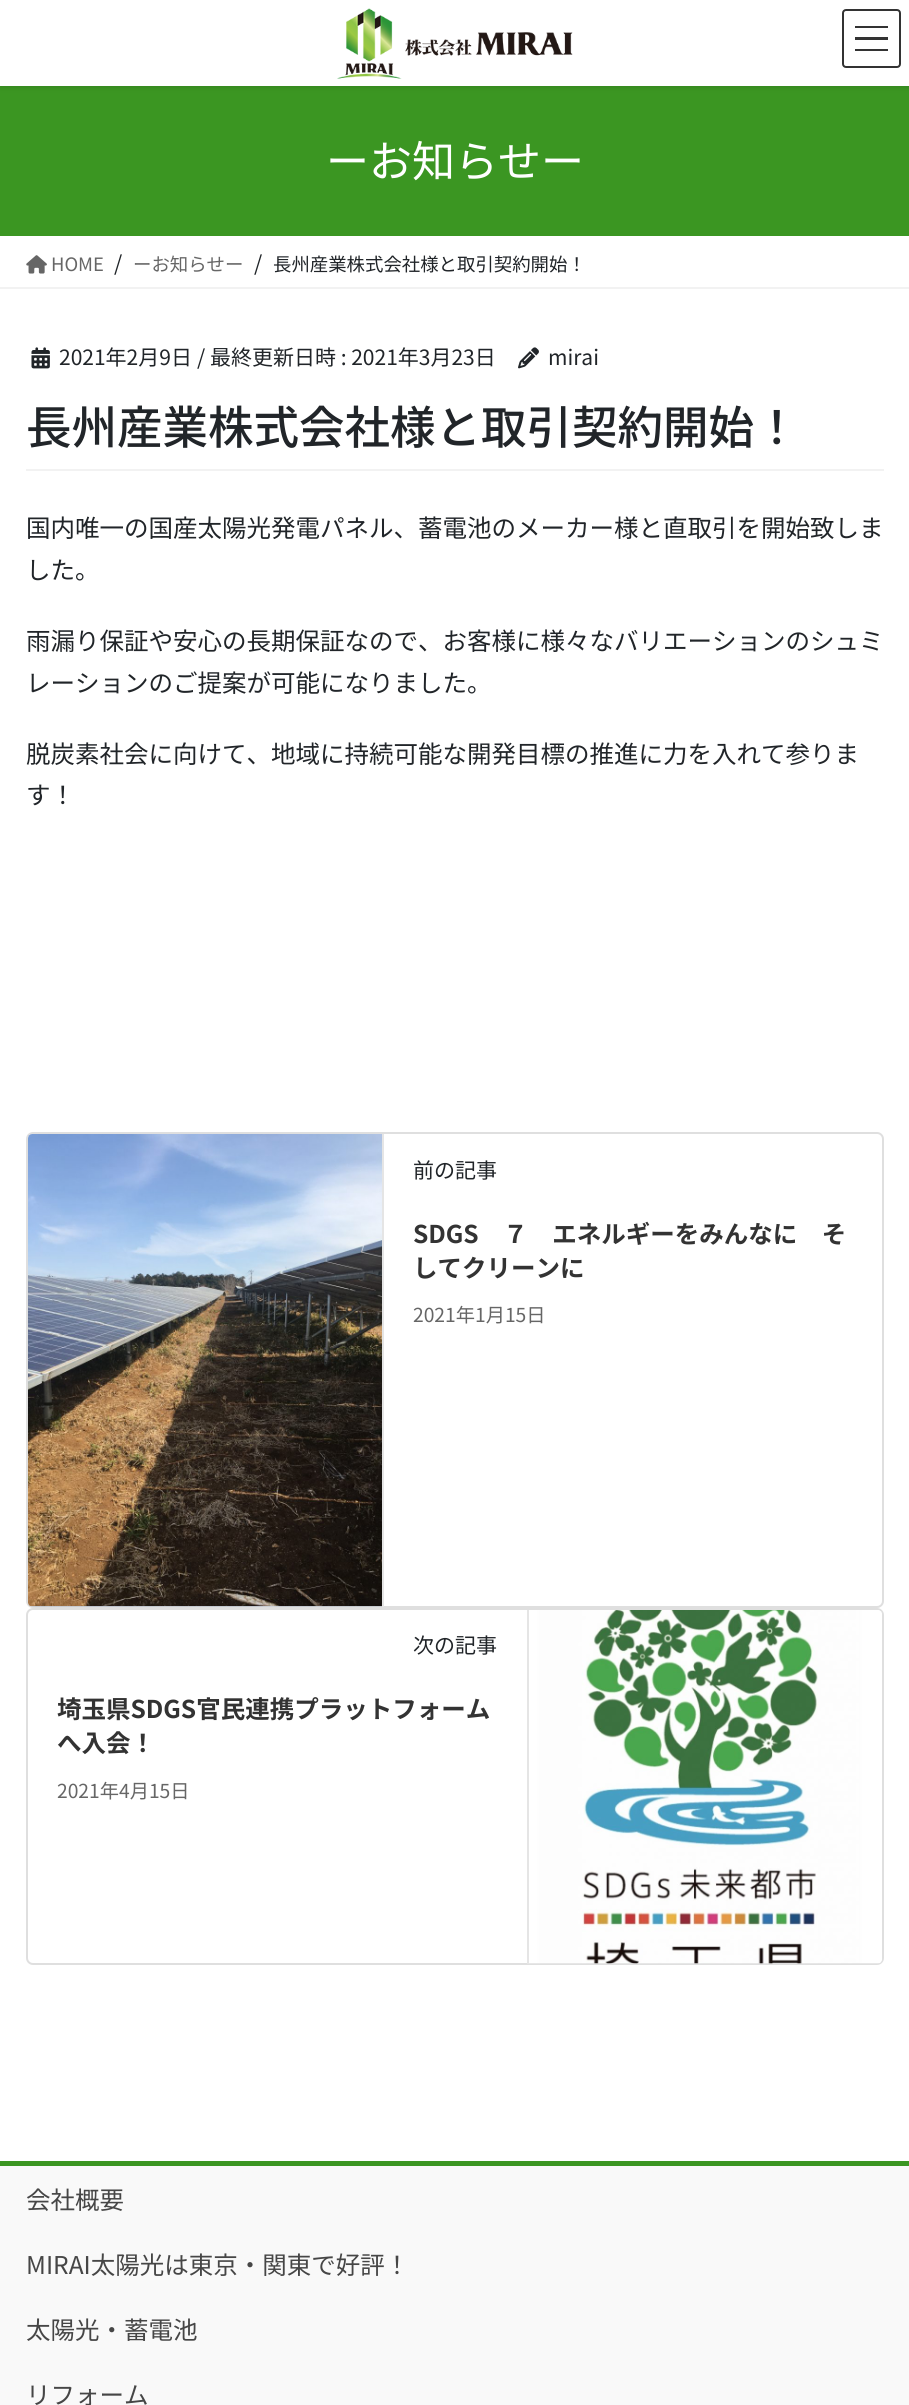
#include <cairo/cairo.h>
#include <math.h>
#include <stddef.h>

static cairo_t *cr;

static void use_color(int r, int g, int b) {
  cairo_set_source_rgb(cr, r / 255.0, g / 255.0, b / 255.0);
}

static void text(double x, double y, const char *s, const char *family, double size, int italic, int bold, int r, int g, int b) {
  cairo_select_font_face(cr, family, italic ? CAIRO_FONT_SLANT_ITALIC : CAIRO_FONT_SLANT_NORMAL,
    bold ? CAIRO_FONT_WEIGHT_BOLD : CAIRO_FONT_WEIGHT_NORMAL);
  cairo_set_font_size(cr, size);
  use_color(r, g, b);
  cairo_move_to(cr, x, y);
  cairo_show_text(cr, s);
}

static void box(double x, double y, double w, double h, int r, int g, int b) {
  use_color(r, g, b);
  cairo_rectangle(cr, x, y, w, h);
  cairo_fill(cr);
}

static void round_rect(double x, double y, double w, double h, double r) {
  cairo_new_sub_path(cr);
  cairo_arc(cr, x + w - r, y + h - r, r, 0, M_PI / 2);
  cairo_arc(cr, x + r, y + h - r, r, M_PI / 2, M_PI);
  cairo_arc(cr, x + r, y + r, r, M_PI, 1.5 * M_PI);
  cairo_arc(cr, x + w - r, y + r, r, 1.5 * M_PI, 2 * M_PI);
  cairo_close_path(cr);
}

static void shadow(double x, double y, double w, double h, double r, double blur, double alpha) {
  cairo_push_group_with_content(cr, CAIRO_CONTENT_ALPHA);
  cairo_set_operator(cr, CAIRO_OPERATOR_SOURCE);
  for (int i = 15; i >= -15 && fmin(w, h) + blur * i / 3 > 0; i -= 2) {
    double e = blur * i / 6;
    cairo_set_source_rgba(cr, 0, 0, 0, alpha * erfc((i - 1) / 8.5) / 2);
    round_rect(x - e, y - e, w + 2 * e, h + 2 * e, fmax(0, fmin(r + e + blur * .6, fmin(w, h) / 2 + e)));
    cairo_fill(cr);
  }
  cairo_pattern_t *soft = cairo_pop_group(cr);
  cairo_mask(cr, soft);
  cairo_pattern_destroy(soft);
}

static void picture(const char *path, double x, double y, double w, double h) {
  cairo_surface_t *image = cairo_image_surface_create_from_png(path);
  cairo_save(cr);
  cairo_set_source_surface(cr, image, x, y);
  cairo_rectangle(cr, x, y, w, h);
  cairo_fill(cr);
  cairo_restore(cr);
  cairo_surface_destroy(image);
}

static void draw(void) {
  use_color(255, 255, 255);
  cairo_paint(cr);
  box(0, 86, 909, 150, 59, 150, 34);
  use_color(0, 0, 0);
  shadow(0, 2, 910, 86, 0, 2.5, 0.1);
  box(0, 0, 909, 86, 255, 255, 255);
  picture("img_01.png", 337, 8, 236, 71);
  box(855, 26, 33, 2, 51, 51, 51);
  box(855, 37, 33, 3, 51, 51, 51);
  box(855, 49, 33, 2, 51, 51, 51);
  round_rect(843, 10, 57, 57, 3);
  cairo_stroke(cr);
  box(0, 287, 909, 2, 242, 242, 242);
  picture("img_02.png", 26, 255, 21, 19);
  box(26, 469, 858, 2, 242, 242, 242);
  picture("img_03.png", 31, 347, 19, 22);
  picture("img_04.png", 518, 347, 21, 22);
  round_rect(27, 1133, 856, 474, 6);
  use_color(223, 223, 223);
  cairo_stroke(cr);
  picture("img_05.png", 28, 1134, 354, 473);
  box(382, 1134, 2, 473, 229, 229, 229);
  round_rect(27, 1609, 856, 355, 6);
  use_color(223, 223, 223);
  cairo_stroke(cr);
  picture("img_06.png", 529, 1610, 353, 354);
  box(527, 1610, 2, 354, 229, 229, 229);
  box(0, 2166, 909, 239, 249, 249, 249);
  box(0, 2161, 909, 5, 59, 150, 34);
  text(326, 177, "ーお知らせー", "Noto Sans JP", 43, 0, 0, 255, 255, 255);
  text(51, 271, "HOME", "Noto Sans JP", 18.4, 0, 0, 102, 102, 102);
  text(114, 271, "/", "Noto Sans JP", 21, 0, 0, 33, 37, 41);
  text(133, 271, "ーお知らせー", "Noto Sans JP", 18.4, 0, 0, 102, 102, 102);
  text(254, 271, "/", "Noto Sans JP", 21, 0, 0, 33, 37, 41);
  text(273, 271, "長州産業株式会社様と取引契約開始！", "Noto Sans JP", 18.4, 0, 0, 33, 37, 41);
  text(59, 365, "2021年2月9日", "Noto Sans JP", 21, 0, 0, 33, 37, 41);
  text(197, 365, "/ 最終更新日時 : 2021年3月23日", "Noto Sans JP", 21, 0, 0, 33, 37, 41);
  text(548, 365, "mirai", "Noto Sans JP", 21, 0, 0, 33, 37, 41);
  text(26, 444, "長州産業株式会社様と取引契約開始！", "Noto Sans JP Medium", 45.5, 0, 0, 33, 37, 41);
  text(26, 537, "国内唯一の国産太陽光発電パネル、蓄電池のメーカー様と直取引を開始致しま", "Noto Sans JP", 24.5, 0, 0, 33, 37, 41);
  text(26, 579, "した。", "Noto Sans JP", 24.5, 0, 0, 33, 37, 41);
  text(26, 650, "雨漏り保証や安心の長期保証なので、お客様に様々なバリエーションのシュミ", "Noto Sans JP", 24.5, 0, 0, 33, 37, 41);
  text(26, 692, "レーションのご提案が可能になりました。", "Noto Sans JP", 24.5, 0, 0, 33, 37, 41);
  text(26, 763, "脱炭素社会に向けて、地域に持続可能な開発目標の推進に力を入れて参りま", "Noto Sans JP", 24.5, 0, 0, 33, 37, 41);
  text(26, 804, "す！", "Noto Sans JP", 24.5, 0, 0, 33, 37, 41);
  text(413, 1178, "前の記事", "Noto Sans JP", 21, 0, 0, 33, 37, 41);
  text(413, 1243, "SDGS　７　エネルギーをみんなに　そ", "Noto Sans JP", 24.5, 0, 1, 51, 51, 51);
  text(413, 1277, "してクリーンに", "Noto Sans JP", 24.5, 0, 1, 51, 51, 51);
  text(413, 1322, "2021年1月15日", "Noto Sans JP", 19.25, 0, 0, 102, 102, 102);
  text(413, 1653, "次の記事", "Noto Sans JP", 21, 0, 0, 33, 37, 41);
  text(57, 1718, "埼玉県SDGS官民連携プラットフォーム", "Noto Sans JP", 24.5, 0, 1, 51, 51, 51);
  text(57, 1752, "へ入会！", "Noto Sans JP", 24.5, 0, 1, 51, 51, 51);
  text(57, 1798, "2021年4月15日", "Noto Sans JP", 19.25, 0, 0, 102, 102, 102);
  text(26, 2209, "会社概要", "Noto Sans JP", 24.5, 0, 0, 70, 70, 70);
  text(26, 2274, "MIRAI太陽光は東京・関東で好評！", "Noto Sans JP", 24.5, 0, 0, 70, 70, 70);
  text(26, 2339, "太陽光・蓄電池", "Noto Sans JP", 24.5, 0, 0, 70, 70, 70);
  text(26, 2404, "リフォーム", "Noto Sans JP", 24.5, 0, 0, 70, 70, 70);
}

int main(void) {
  cairo_surface_t *surface = cairo_image_surface_create(CAIRO_FORMAT_RGB24, 909, 2405);
  cr = cairo_create(surface);
  cairo_font_options_t *options = cairo_font_options_create();
  cairo_font_options_set_hint_metrics(options, CAIRO_HINT_METRICS_OFF);
  cairo_font_options_set_hint_style(options, CAIRO_HINT_STYLE_NONE);
  cairo_set_font_options(cr, options);
  cairo_set_miter_limit(cr, 4);
  draw();
  cairo_surface_write_to_png(surface, "out.png");
  cairo_font_options_destroy(options);
  cairo_destroy(cr);
  cairo_surface_destroy(surface);
  return 0;
}
